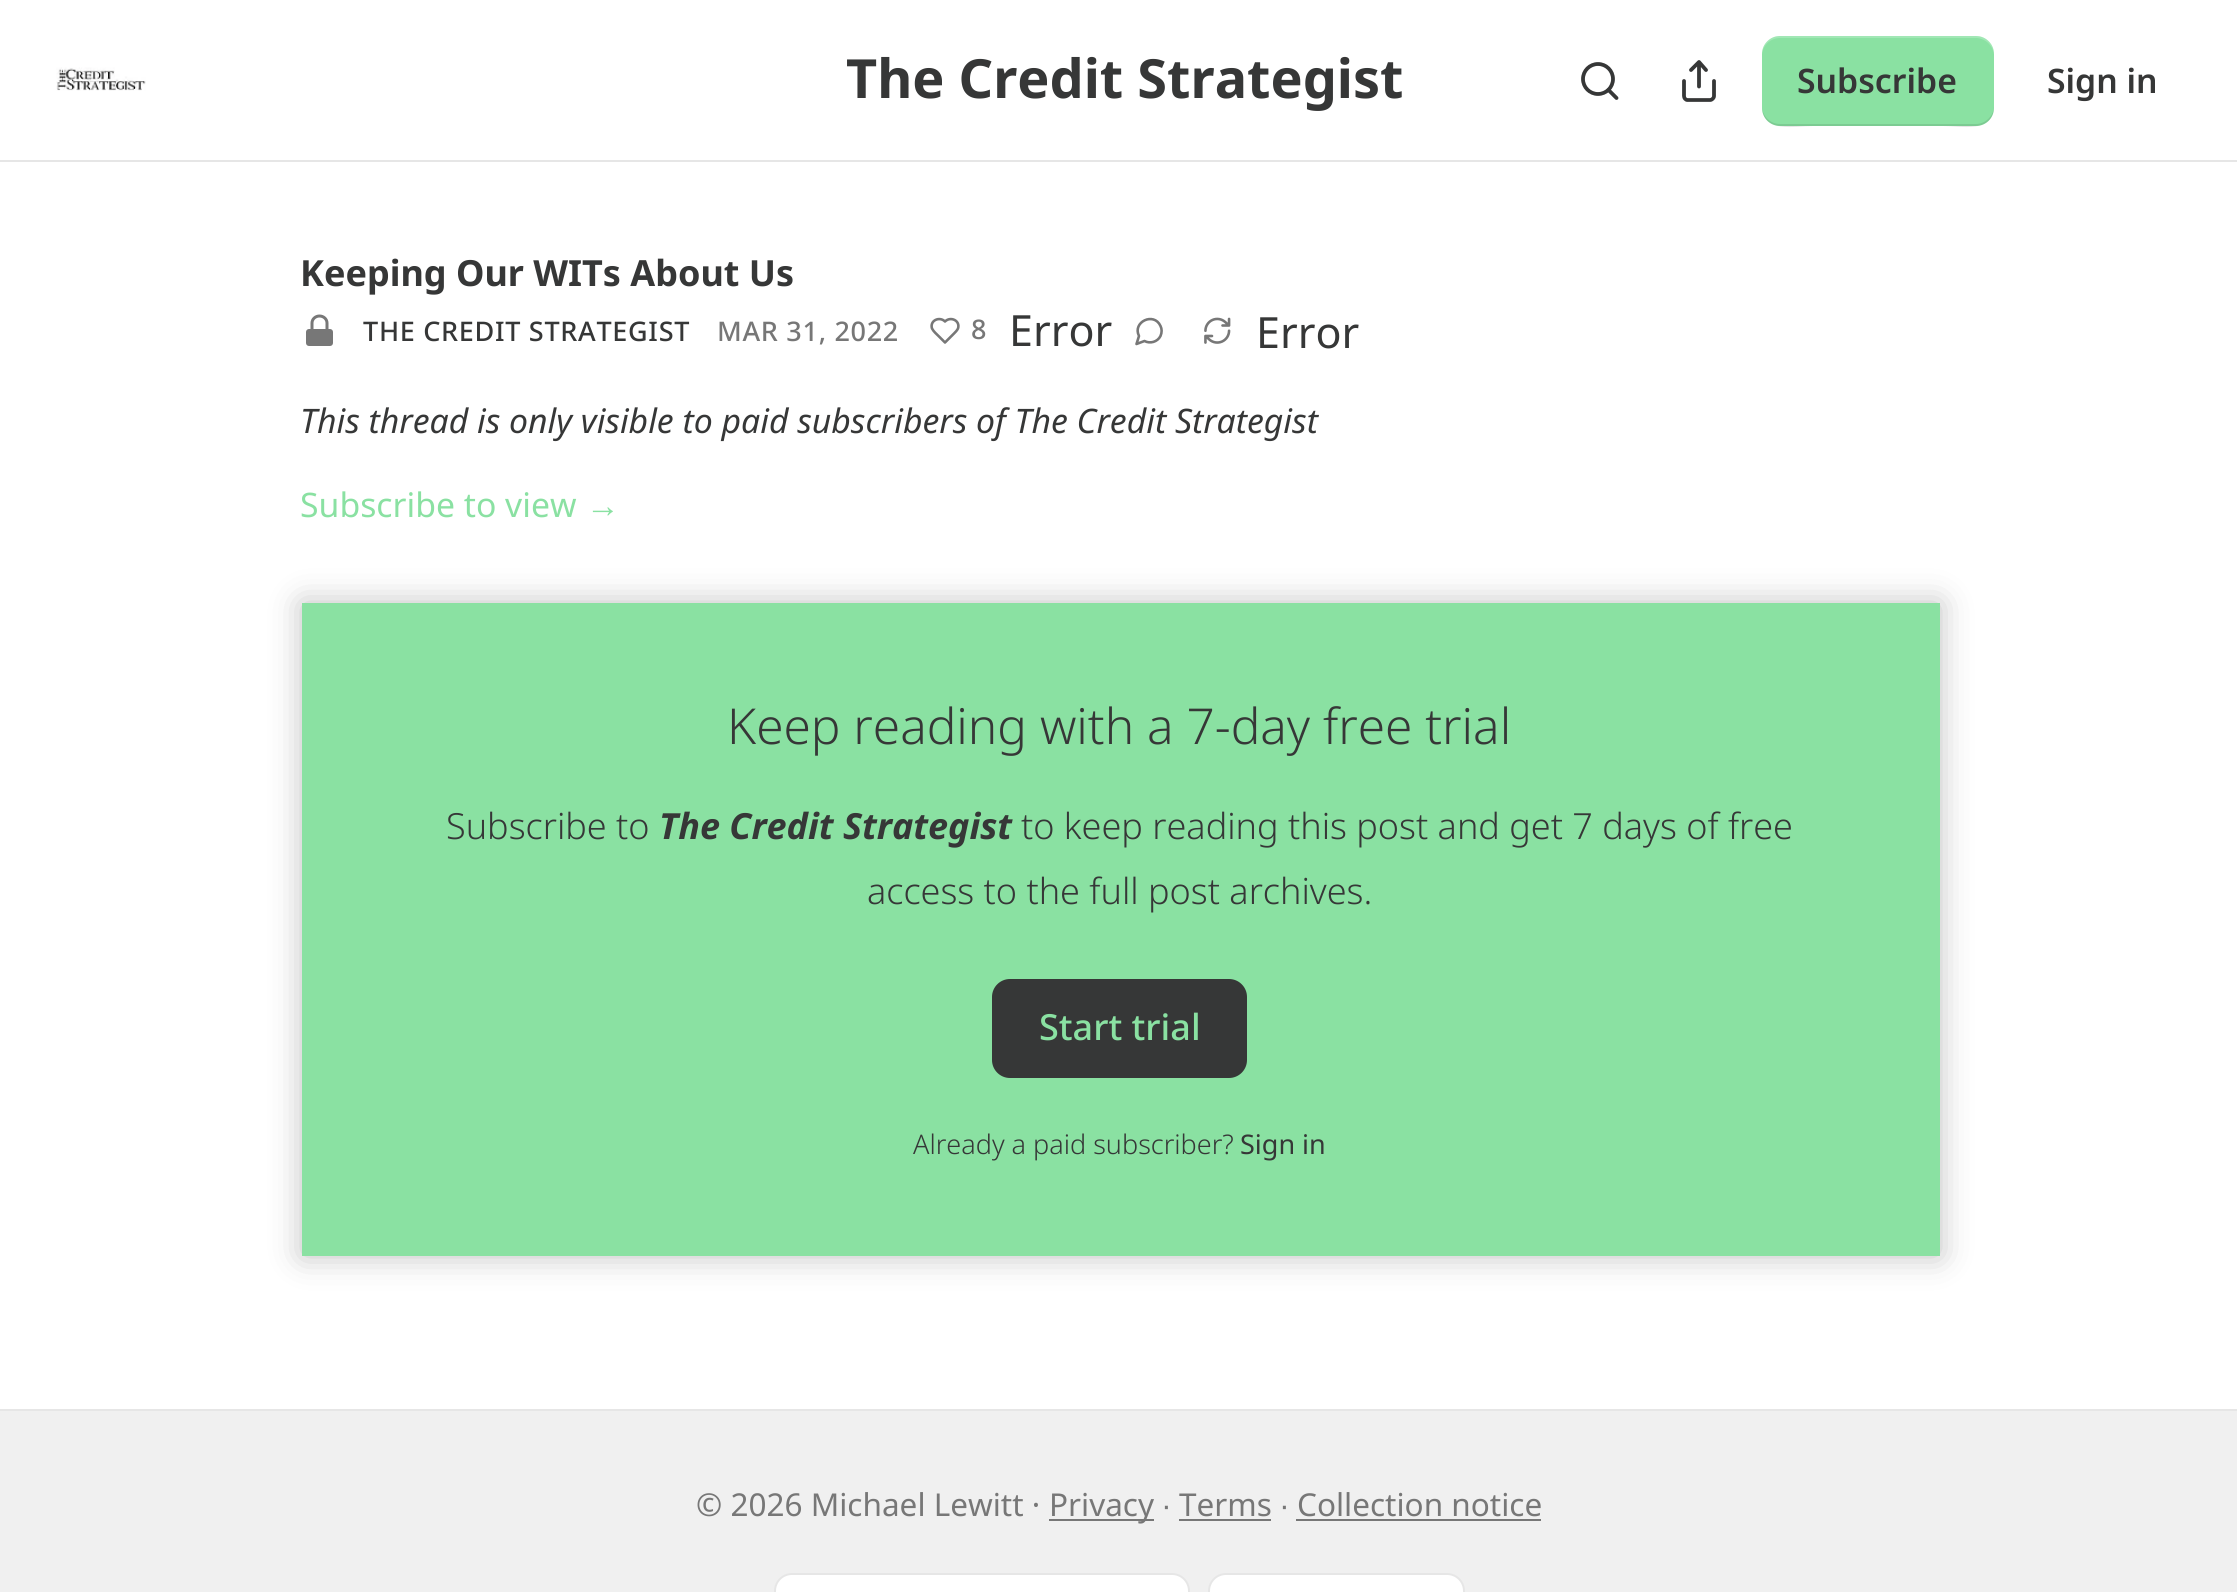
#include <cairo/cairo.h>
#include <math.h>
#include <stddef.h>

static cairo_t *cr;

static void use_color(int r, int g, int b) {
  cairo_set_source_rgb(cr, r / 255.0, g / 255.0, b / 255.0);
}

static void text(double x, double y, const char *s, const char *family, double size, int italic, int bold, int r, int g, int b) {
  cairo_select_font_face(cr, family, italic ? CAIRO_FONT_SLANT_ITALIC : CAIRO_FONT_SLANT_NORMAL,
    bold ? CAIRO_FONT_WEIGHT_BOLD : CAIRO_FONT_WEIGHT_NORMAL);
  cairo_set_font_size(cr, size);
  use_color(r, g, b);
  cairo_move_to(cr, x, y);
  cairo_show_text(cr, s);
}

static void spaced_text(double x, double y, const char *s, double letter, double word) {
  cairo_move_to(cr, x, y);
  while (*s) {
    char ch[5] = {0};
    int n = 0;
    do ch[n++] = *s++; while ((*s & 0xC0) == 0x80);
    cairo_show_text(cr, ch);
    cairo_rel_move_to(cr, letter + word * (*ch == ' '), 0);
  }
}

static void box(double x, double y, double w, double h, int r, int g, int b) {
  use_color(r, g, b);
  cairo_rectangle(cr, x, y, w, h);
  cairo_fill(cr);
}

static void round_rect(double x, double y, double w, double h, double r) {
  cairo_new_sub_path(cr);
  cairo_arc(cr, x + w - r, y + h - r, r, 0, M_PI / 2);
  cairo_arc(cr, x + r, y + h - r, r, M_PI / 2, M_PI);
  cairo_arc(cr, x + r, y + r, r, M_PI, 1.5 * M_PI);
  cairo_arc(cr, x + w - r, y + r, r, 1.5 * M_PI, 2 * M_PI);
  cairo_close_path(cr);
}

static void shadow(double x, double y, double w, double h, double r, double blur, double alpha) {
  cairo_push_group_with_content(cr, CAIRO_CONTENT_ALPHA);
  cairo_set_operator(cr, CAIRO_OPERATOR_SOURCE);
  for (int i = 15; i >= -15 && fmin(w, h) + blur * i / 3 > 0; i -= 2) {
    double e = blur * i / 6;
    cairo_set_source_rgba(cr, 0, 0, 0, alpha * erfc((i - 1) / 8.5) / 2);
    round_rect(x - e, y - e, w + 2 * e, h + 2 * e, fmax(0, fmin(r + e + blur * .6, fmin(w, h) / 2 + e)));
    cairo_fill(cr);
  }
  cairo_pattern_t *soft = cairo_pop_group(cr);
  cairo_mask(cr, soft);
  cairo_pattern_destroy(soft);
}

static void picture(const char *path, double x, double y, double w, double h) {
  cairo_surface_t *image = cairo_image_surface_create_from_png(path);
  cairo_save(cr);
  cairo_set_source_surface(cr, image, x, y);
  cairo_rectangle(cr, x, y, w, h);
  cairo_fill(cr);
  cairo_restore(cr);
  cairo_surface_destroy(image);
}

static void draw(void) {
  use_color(255, 255, 255);
  cairo_paint(cr);
  box(0, 160, 2237, 2, 230, 230, 230);
  picture("img_01.png", 56, 67, 90, 24);
  cairo_arc(cr, 1598, 79, 15, 0, 2 * M_PI);
  use_color(54, 55, 55);
  cairo_set_line_width(cr, 3.8);
  cairo_stroke(cr);
  cairo_new_path(cr);
  cairo_move_to(cr, 1616.5, 98);
  cairo_line_to(cr, 1608.5, 90);
  cairo_set_line_cap(cr, CAIRO_LINE_CAP_ROUND);
  cairo_set_line_join(cr, CAIRO_LINE_JOIN_ROUND);
  cairo_stroke(cr);
  cairo_new_path(cr);
  cairo_move_to(cr, 1684, 81);
  cairo_line_to(cr, 1684, 96);
  cairo_curve_to(cr, 1684, 98, 1685.5, 100, 1687.5, 100);
  cairo_line_to(cr, 1710, 100);
  cairo_curve_to(cr, 1712, 100, 1714, 98, 1714, 96);
  cairo_line_to(cr, 1714, 81);
  cairo_move_to(cr, 1706, 70);
  cairo_line_to(cr, 1699, 62);
  cairo_line_to(cr, 1691, 70);
  cairo_move_to(cr, 1699, 62);
  cairo_line_to(cr, 1699, 86.5);
  cairo_stroke(cr);
  use_color(138, 225, 162);
  round_rect(1762, 36, 232, 90, 18);
  cairo_fill(cr);
  cairo_set_source_rgba(cr, 0, 0, 0, 0.1);
  cairo_new_path(cr);
  cairo_move_to(cr, 1762, 106);
  cairo_curve_to(cr, 1762, 134, 1795, 126, 1813, 126);
  cairo_line_to(cr, 1943, 126);
  cairo_curve_to(cr, 1961, 126, 1994, 134, 1994, 106);
  cairo_curve_to(cr, 1994, 116, 1985, 124, 1976, 124);
  cairo_line_to(cr, 1780, 124);
  cairo_curve_to(cr, 1770, 124, 1762, 116, 1762, 106);
  cairo_close_path(cr);
  cairo_fill(cr);
  cairo_set_source_rgba(cr, 1, 1, 1, 0.2);
  cairo_new_path(cr);
  cairo_move_to(cr, 1780, 38);
  cairo_line_to(cr, 1976, 38);
  cairo_curve_to(cr, 1985, 38, 1994, 46, 1994, 56);
  cairo_curve_to(cr, 1994, 28, 1961, 36, 1943, 36);
  cairo_line_to(cr, 1813, 36);
  cairo_curve_to(cr, 1795, 36, 1762, 28, 1762, 56);
  cairo_curve_to(cr, 1762, 46, 1770, 38, 1780, 38);
  cairo_close_path(cr);
  cairo_fill(cr);
  use_color(119, 119, 119);
  round_rect(306, 329, 27, 17, 3);
  cairo_fill(cr);
  cairo_new_path(cr);
  cairo_move_to(cr, 312, 329);
  cairo_line_to(cr, 312, 323);
  cairo_curve_to(cr, 312, 319, 315.5, 316, 319.5, 316);
  cairo_curve_to(cr, 323.5, 316, 327, 319, 327, 323);
  cairo_line_to(cr, 327, 329);
  cairo_set_line_width(cr, 3);
  cairo_stroke(cr);
  cairo_new_path(cr);
  cairo_move_to(cr, 954, 333.5);
  cairo_curve_to(cr, 955.5, 332, 957, 330.5, 958, 328.5);
  cairo_curve_to(cr, 960.5, 320.5, 950.5, 316, 945, 321.5);
  cairo_curve_to(cr, 939.5, 316, 929.5, 320.5, 932, 328.5);
  cairo_curve_to(cr, 933.5, 331.5, 936.5, 334, 939, 336.5);
  cairo_line_to(cr, 945, 342.5);
  cairo_close_path(cr);
  cairo_set_line_width(cr, 2.6);
  cairo_stroke(cr);
  cairo_new_path(cr);
  cairo_move_to(cr, 1144.5, 341);
  cairo_curve_to(cr, 1150, 344, 1157.5, 342, 1160.5, 336);
  cairo_curve_to(cr, 1162, 332.5, 1162, 329, 1160.5, 326);
  cairo_curve_to(cr, 1154, 311.5, 1132, 322, 1139, 336);
  cairo_line_to(cr, 1136.5, 344);
  cairo_close_path(cr);
  cairo_stroke(cr);
  picture("img_02.png", 1204, 317, 27, 27);
  box(302, 603, 1638, 653, 138, 225, 162);
  use_color(54, 55, 55);
  round_rect(993, 980, 253, 97, 17);
  cairo_fill_preserve(cr);
  cairo_set_line_width(cr, 2);
  cairo_set_line_cap(cr, CAIRO_LINE_CAP_BUTT);
  cairo_set_line_join(cr, CAIRO_LINE_JOIN_MITER);
  cairo_stroke(cr);
  cairo_save(cr);
  cairo_set_fill_rule(cr, CAIRO_FILL_RULE_EVEN_ODD);
  cairo_new_path(cr);
  cairo_move_to(cr, 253, 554);
  cairo_line_to(cr, 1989, 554);
  cairo_line_to(cr, 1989, 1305);
  cairo_line_to(cr, 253, 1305);
  cairo_close_path(cr);
  cairo_move_to(cr, 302, 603);
  cairo_line_to(cr, 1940, 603);
  cairo_line_to(cr, 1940, 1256);
  cairo_line_to(cr, 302, 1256);
  cairo_close_path(cr);
  cairo_clip(cr);
  use_color(0, 0, 0);
  shadow(302, 603, 1638, 653, 0, 16, 0.25);
  cairo_restore(cr);
  box(0, 1411, 2237, 181, 240, 240, 240);
  box(0, 1409, 2237, 2, 230, 230, 230);
  box(1049, 1519, 105, 2, 119, 119, 119);
  box(1179, 1519, 92, 2, 119, 119, 119);
  box(1296, 1519, 245, 2, 119, 119, 119);
  use_color(255, 255, 255);
  round_rect(775, 1574, 414, 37, 17);
  cairo_fill_preserve(cr);
  use_color(230, 230, 230);
  cairo_stroke(cr);
  use_color(255, 255, 255);
  round_rect(1209, 1574, 255, 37, 17);
  cairo_fill_preserve(cr);
  use_color(230, 230, 230);
  cairo_stroke(cr);
  text(846, 98, "The Credit Strategist", "Noto Sans", 54, 0, 1, 54, 55, 55);
  text(1797, 93, "Subscribe", "Noto Sans SemiBold", 33.75, 0, 0, 54, 55, 55);
  text(2047, 93, "Sign in", "Noto Sans SemiBold", 33.75, 0, 0, 54, 55, 55);
  text(300, 286, "Keeping Our WITs About Us", "Noto Sans", 36, 0, 1, 54, 55, 55);
  cairo_select_font_face(cr, "Noto Sans Medium", CAIRO_FONT_SLANT_NORMAL, CAIRO_FONT_WEIGHT_NORMAL);
  cairo_set_font_size(cr, 27);
  spaced_text(363, 341, "THE CREDIT STRATEGIST", 0.7, 0);
  use_color(119, 119, 119);
  spaced_text(717, 341, "MAR 31, 2022", 0.7, 0);
  spaced_text(971, 339, "8", 0.7, 0);
  text(1009, 346, "Error", "Noto Sans", 43, 0, 0, 54, 55, 55);
  text(1256, 348, "Error", "Noto Sans", 43, 0, 0, 54, 55, 55);
  text(300, 433, "This thread is only visible to paid subscribers of The Credit Strategist", "Noto Sans", 33.75, 1, 0, 54, 55, 55);
  text(300, 517, "Subscribe to view", "Noto Sans", 33.75, 0, 0, 138, 225, 162);
  text(586, 517, "→", "Liberation Sans", 33.75, 0, 0, 138, 225, 162);
  text(727, 744, "Keep reading with a 7-day free trial", "Noto Sans Light", 49.5, 0, 0, 54, 55, 55);
  text(446, 839, "Subscribe to", "Noto Sans Light", 36, 0, 0, 54, 55, 55);
  text(659, 839, "The Credit Strategist", "Noto Sans", 36, 1, 1, 54, 55, 55);
  text(1021, 839, "to keep reading this post and get 7 days of free", "Noto Sans Light", 36, 0, 0, 54, 55, 55);
  text(867, 904, "access to the full post archives.", "Noto Sans Light", 36, 0, 0, 54, 55, 55);
  text(1039, 1040, "Start trial", "Noto Sans Medium", 36, 0, 0, 138, 225, 162);
  text(913, 1154, "Already a paid subscriber?", "Noto Sans Light", 27, 0, 0, 54, 55, 55);
  text(1240, 1154, "Sign in", "Noto Sans", 27, 0, 0, 54, 55, 55);
  text(696, 1516, "© 2026 Michael Lewitt ·", "Noto Sans", 31.5, 0, 0, 119, 119, 119);
  text(1049, 1516, "Privacy", "Noto Sans", 31.5, 0, 0, 119, 119, 119);
  text(1162, 1516, "∙", "Liberation Sans", 31.5, 0, 0, 119, 119, 119);
  text(1179, 1516, "Terms", "Noto Sans", 31.5, 0, 0, 119, 119, 119);
  text(1280, 1516, "∙", "Liberation Sans", 31.5, 0, 0, 119, 119, 119);
  text(1297, 1516, "Collection notice", "Noto Sans", 31.5, 0, 0, 119, 119, 119);
}

int main(void) {
  cairo_surface_t *surface = cairo_image_surface_create(CAIRO_FORMAT_RGB24, 2237, 1592);
  cr = cairo_create(surface);
  cairo_font_options_t *options = cairo_font_options_create();
  cairo_font_options_set_hint_metrics(options, CAIRO_HINT_METRICS_OFF);
  cairo_font_options_set_hint_style(options, CAIRO_HINT_STYLE_NONE);
  cairo_set_font_options(cr, options);
  cairo_set_miter_limit(cr, 4);
  draw();
  cairo_surface_write_to_png(surface, "out.png");
  cairo_font_options_destroy(options);
  cairo_destroy(cr);
  cairo_surface_destroy(surface);
  return 0;
}
